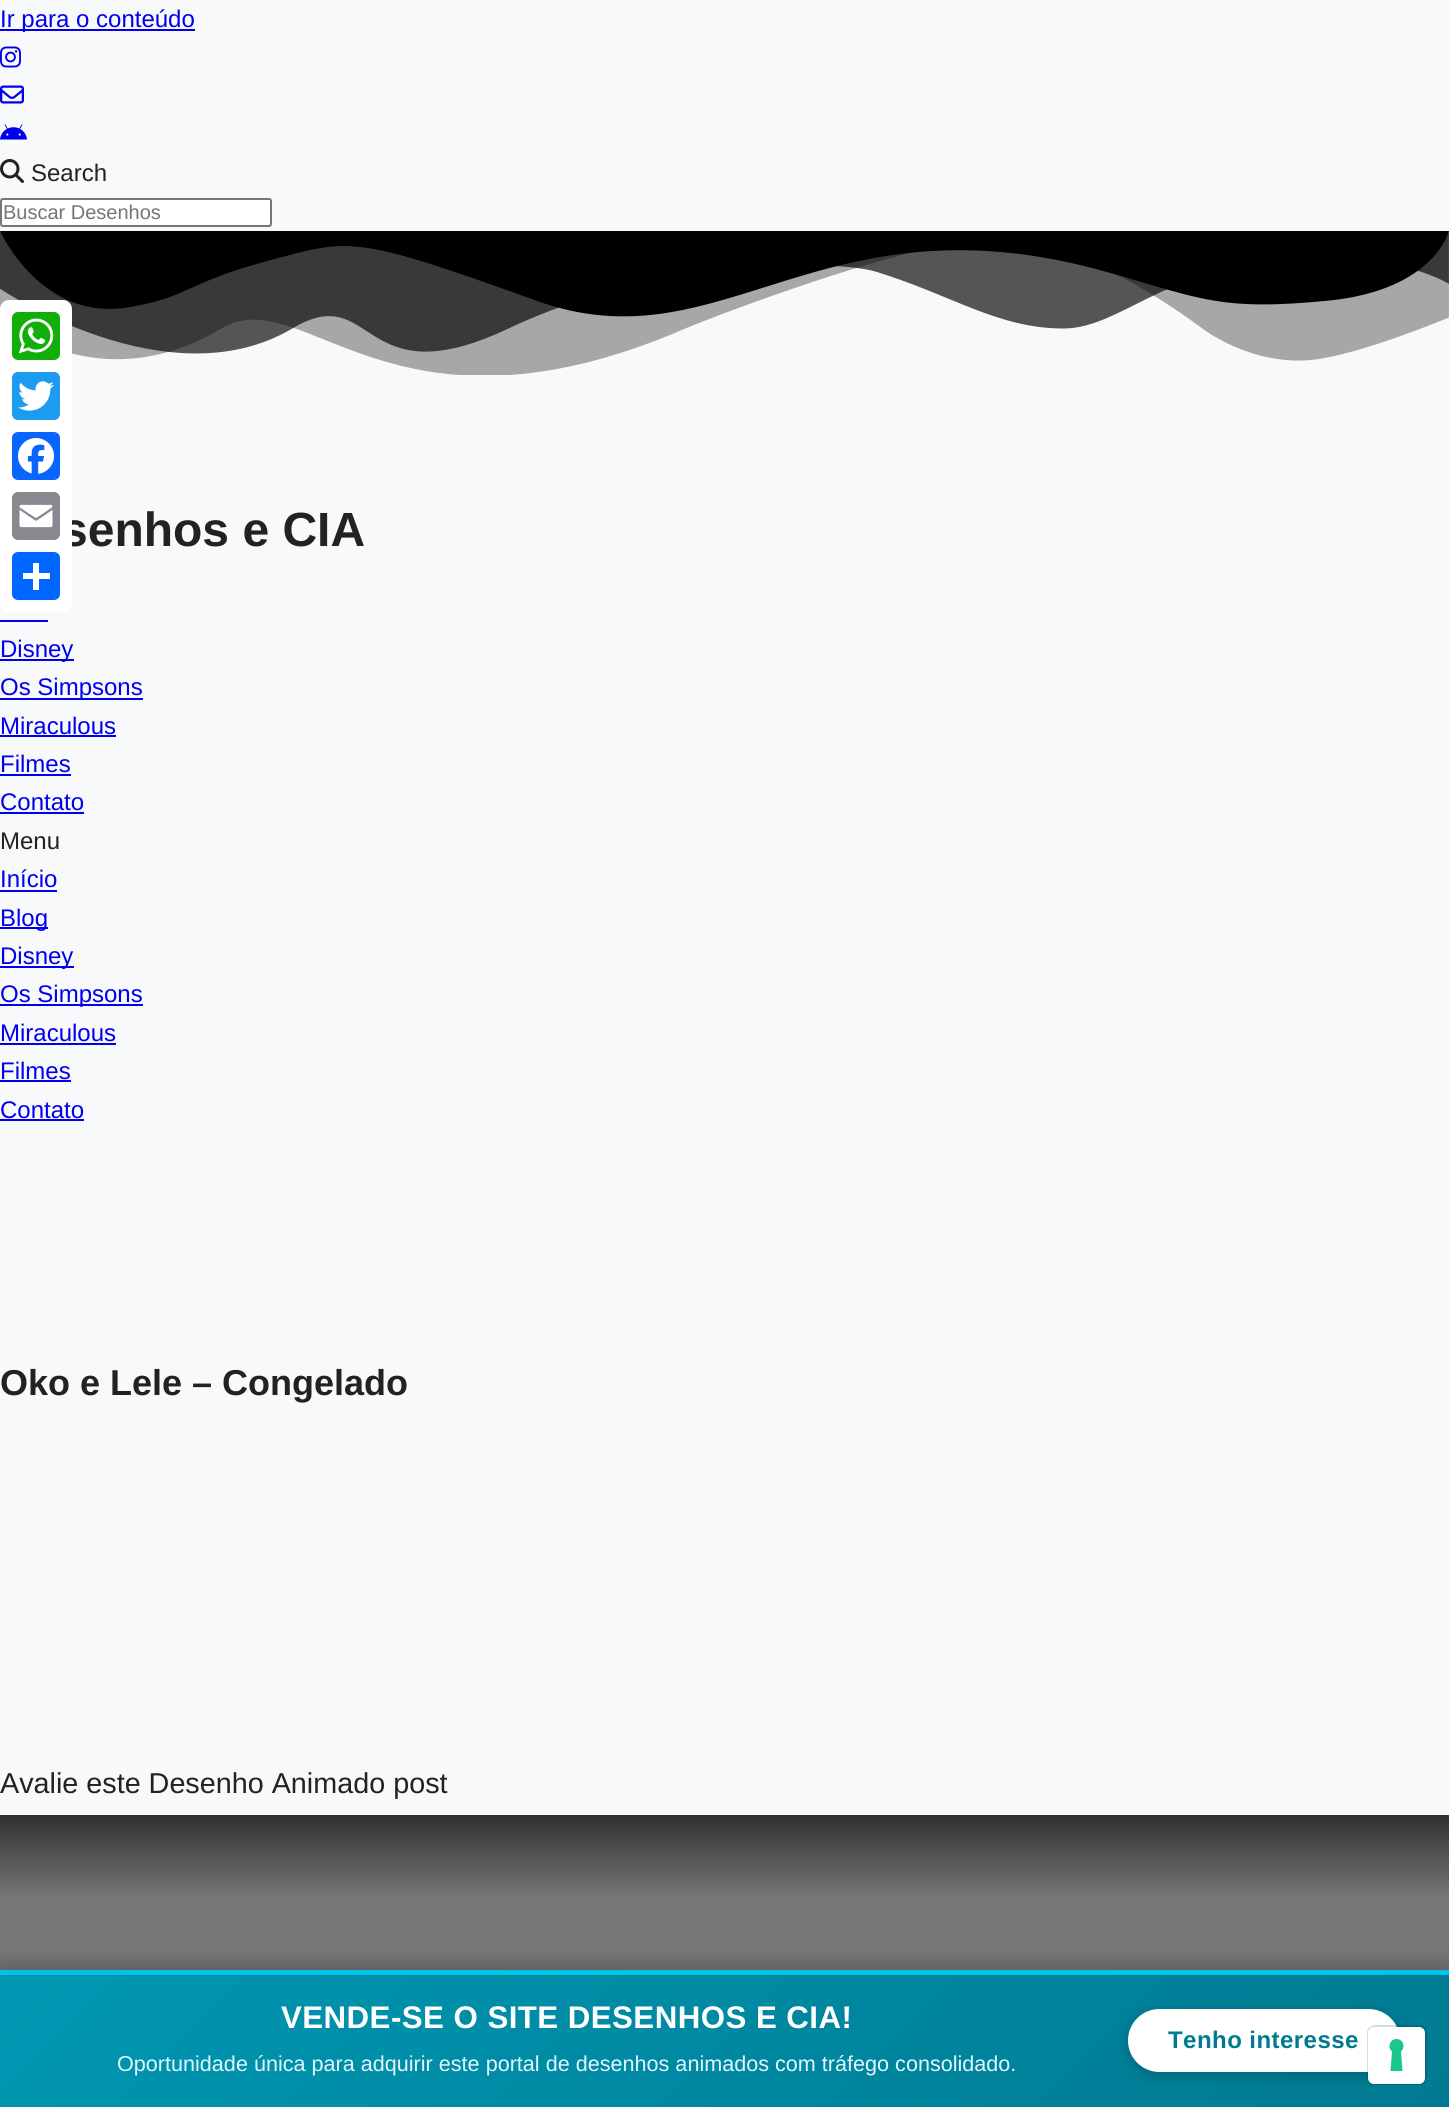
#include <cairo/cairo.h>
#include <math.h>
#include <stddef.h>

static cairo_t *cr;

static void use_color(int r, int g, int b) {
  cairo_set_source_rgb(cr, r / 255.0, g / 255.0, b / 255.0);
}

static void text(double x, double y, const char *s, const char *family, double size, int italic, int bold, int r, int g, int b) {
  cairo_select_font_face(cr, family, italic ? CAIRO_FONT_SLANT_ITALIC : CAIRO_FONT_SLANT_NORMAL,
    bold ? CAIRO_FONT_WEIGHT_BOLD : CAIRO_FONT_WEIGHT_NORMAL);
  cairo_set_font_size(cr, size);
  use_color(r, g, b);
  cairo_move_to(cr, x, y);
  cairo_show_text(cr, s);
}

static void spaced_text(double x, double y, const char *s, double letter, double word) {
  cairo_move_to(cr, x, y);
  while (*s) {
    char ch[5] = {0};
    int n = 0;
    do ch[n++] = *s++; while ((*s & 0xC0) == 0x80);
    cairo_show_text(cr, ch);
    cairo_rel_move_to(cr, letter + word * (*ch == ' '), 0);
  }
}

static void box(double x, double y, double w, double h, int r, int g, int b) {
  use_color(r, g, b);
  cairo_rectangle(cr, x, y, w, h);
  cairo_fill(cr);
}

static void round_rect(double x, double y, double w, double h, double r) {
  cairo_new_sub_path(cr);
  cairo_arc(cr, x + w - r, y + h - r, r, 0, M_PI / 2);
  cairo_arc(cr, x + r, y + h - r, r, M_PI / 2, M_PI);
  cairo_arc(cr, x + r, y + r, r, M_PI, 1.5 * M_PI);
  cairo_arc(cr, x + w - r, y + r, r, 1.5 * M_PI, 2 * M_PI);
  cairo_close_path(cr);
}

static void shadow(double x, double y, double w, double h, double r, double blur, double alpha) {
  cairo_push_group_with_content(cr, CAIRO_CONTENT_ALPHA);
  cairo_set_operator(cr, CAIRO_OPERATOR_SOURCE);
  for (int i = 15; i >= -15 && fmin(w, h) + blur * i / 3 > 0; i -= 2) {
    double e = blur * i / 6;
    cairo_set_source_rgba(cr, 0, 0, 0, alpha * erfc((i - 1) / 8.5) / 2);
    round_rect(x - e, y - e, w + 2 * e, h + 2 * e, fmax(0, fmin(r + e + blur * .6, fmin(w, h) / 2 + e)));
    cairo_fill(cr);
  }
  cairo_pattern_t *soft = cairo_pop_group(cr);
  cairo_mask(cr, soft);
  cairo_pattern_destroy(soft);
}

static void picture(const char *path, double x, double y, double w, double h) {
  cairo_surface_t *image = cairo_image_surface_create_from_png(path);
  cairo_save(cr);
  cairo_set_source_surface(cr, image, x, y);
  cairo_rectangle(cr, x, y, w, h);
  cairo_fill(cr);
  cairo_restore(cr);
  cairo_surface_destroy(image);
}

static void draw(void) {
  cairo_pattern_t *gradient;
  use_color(248, 249, 250);
  cairo_paint(cr);
  box(0, 29, 195, 2, 0, 0, 238);
  picture("img_01.png", 0, 46, 21, 22);
  picture("img_02.png", 0, 85, 24, 19);
  picture("img_03.png", 0, 124, 27, 16);
  picture("img_04.png", 0, 159, 24, 24);
  use_color(255, 255, 255);
  round_rect(1, 199, 270, 27, 2);
  cairo_fill_preserve(cr);
  use_color(118, 118, 118);
  cairo_stroke(cr);
  picture("img_05.png", 0, 231, 1449, 144);
  box(0, 620, 48, 2, 0, 0, 238);
  box(0, 659, 74, 2, 0, 0, 238);
  box(0, 698, 143, 2, 0, 0, 238);
  box(0, 735, 116, 2, 0, 0, 238);
  box(0, 774, 71, 2, 0, 0, 238);
  box(0, 812, 84, 2, 0, 0, 238);
  box(0, 890, 57, 2, 0, 0, 238);
  box(0, 927, 48, 2, 0, 0, 238);
  box(0, 966, 74, 2, 0, 0, 238);
  box(0, 1004, 143, 2, 0, 0, 238);
  box(0, 1043, 116, 2, 0, 0, 238);
  box(0, 1080, 71, 2, 0, 0, 238);
  box(0, 1119, 84, 2, 0, 0, 238);
  box(0, 1898, 1449, 72, 119, 119, 119);
  gradient = cairo_pattern_create_linear(725, 1815, 725, 1898);
  cairo_pattern_add_color_stop_rgba(gradient, 0, 0.188, 0.188, 0.188, 1);
  cairo_pattern_add_color_stop_rgba(gradient, 1, 0.467, 0.467, 0.467, 1);
  cairo_set_source(cr, gradient);
  cairo_pattern_destroy(gradient);
  cairo_rectangle(cr, 0, 1815, 1449, 83);
  cairo_fill(cr);
  use_color(0, 0, 0);
  shadow(0, 1965, 1449, 138, 0, 11, 0.25);
  gradient = cairo_pattern_create_linear(329, 1645, 1120, 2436);
  cairo_pattern_add_color_stop_rgba(gradient, 0, 0, 0.592, 0.698, 1);
  cairo_pattern_add_color_stop_rgba(gradient, 1, 0, 0.478, 0.569, 1);
  cairo_set_source(cr, gradient);
  cairo_pattern_destroy(gradient);
  cairo_rectangle(cr, 0, 1975, 1449, 132);
  cairo_fill(cr);
  box(0, 1970, 1449, 5, 0, 195, 230);
  use_color(0, 0, 0);
  shadow(1128, 2013, 272, 63, 31.5, 7.5, 0.2);
  use_color(255, 255, 255);
  round_rect(1129.5, 2010.5, 269, 60, 30);
  cairo_fill_preserve(cr);
  cairo_set_line_width(cr, 3);
  cairo_stroke(cr);
  round_rect(1368, 2026, 58, 58, 7);
  cairo_set_source_rgba(cr, 0, 0, 0, 0.15);
  cairo_set_line_width(cr, 2);
  cairo_stroke(cr);
  use_color(255, 255, 255);
  round_rect(1368, 2027, 57, 57, 6);
  cairo_fill(cr);
  use_color(28, 198, 145);
  cairo_set_fill_rule(cr, CAIRO_FILL_RULE_EVEN_ODD);
  cairo_new_path(cr);
  cairo_move_to(cr, 1396.5, 2039);
  cairo_curve_to(cr, 1403, 2039, 1406, 2047, 1401, 2051.5);
  cairo_line_to(cr, 1402.5, 2071);
  cairo_line_to(cr, 1390.5, 2071);
  cairo_line_to(cr, 1392, 2051.5);
  cairo_curve_to(cr, 1387, 2047, 1390, 2039, 1396.5, 2039);
  cairo_close_path(cr);
  cairo_fill(cr);
  text(0, 27, "Ir para o conteúdo", "Liberation Sans", 24, 0, 0, 0, 0, 238);
  text(31, 181, "Search", "Liberation Sans", 24, 0, 0, 34, 34, 34);
  text(3, 219, "Buscar Desenhos", "Liberation Sans", 20, 0, 0, 117, 117, 117);
  text(61, 546, "senhos e CIA", "Liberation Sans", 48, 0, 1, 34, 34, 34);
  text(0, 657, "Disney", "Liberation Sans", 24, 0, 0, 0, 0, 238);
  text(0, 695, "Os Simpsons", "Liberation Sans", 24, 0, 0, 0, 0, 238);
  text(0, 734, "Miraculous", "Liberation Sans", 24, 0, 0, 0, 0, 238);
  text(0, 772, "Filmes", "Liberation Sans", 24, 0, 0, 0, 0, 238);
  text(0, 810, "Contato", "Liberation Sans", 24, 0, 0, 0, 0, 238);
  text(0, 849, "Menu", "Liberation Sans", 24, 0, 0, 34, 34, 34);
  text(0, 887, "Início", "Liberation Sans", 24, 0, 0, 0, 0, 238);
  text(0, 926, "Blog", "Liberation Sans", 24, 0, 0, 0, 0, 238);
  text(0, 964, "Disney", "Liberation Sans", 24, 0, 0, 0, 0, 238);
  text(0, 1002, "Os Simpsons", "Liberation Sans", 24, 0, 0, 0, 0, 238);
  text(0, 1041, "Miraculous", "Liberation Sans", 24, 0, 0, 0, 0, 238);
  text(0, 1079, "Filmes", "Liberation Sans", 24, 0, 0, 0, 0, 238);
  text(0, 1118, "Contato", "Liberation Sans", 24, 0, 0, 0, 0, 238);
  use_color(255, 255, 255);
  round_rect(0, 300, 72, 312, 9);
  cairo_fill(cr);
  use_color(18, 175, 10);
  round_rect(12, 312, 48, 48, 6);
  cairo_fill(cr);
  picture("img_06.png", 18, 318, 36, 36);
  use_color(29, 155, 240);
  round_rect(12, 372, 48, 48, 6);
  cairo_fill(cr);
  picture("img_07.png", 18, 381, 36, 30);
  use_color(8, 102, 255);
  round_rect(12, 432, 48, 48, 6);
  cairo_fill(cr);
  picture("img_08.png", 18, 438, 36, 36);
  use_color(136, 137, 144);
  round_rect(12, 492, 48, 48, 6);
  cairo_fill(cr);
  picture("img_09.png", 19, 504, 34, 24);
  use_color(1, 102, 255);
  round_rect(12, 552, 48, 48, 6);
  cairo_fill(cr);
  box(33, 563, 6, 27, 255, 255, 255);
  box(23, 573, 27, 6, 255, 255, 255);
  text(0, 1395, "Oko e Lele – Congelado", "Liberation Sans", 36, 0, 1, 34, 34, 34);
  text(0, 1793, "Avalie este Desenho Animado post", "Liberation Sans", 28.75, 0, 0, 34, 34, 34);
  cairo_select_font_face(cr, "Liberation Sans", CAIRO_FONT_SLANT_NORMAL, CAIRO_FONT_WEIGHT_BOLD);
  cairo_set_font_size(cr, 31.25);
  use_color(255, 255, 255);
  spaced_text(281, 2028, "VENDE-SE O SITE DESENHOS E CIA!", 0.45, 0);
  text(117, 2071, "Oportunidade única para adquirir este portal de desenhos animados com tráfego consolidado.", "Liberation Sans", 21.6, 0, 0, 224, 247, 255);
  cairo_select_font_face(cr, "Liberation Sans", CAIRO_FONT_SLANT_NORMAL, CAIRO_FONT_WEIGHT_BOLD);
  cairo_set_font_size(cr, 24);
  use_color(0, 122, 145);
  spaced_text(1168, 2048, "Tenho interesse", 0.45, 0);
}

int main(void) {
  cairo_surface_t *surface = cairo_image_surface_create(CAIRO_FORMAT_RGB24, 1449, 2107);
  cr = cairo_create(surface);
  cairo_font_options_t *options = cairo_font_options_create();
  cairo_font_options_set_hint_metrics(options, CAIRO_HINT_METRICS_OFF);
  cairo_font_options_set_hint_style(options, CAIRO_HINT_STYLE_NONE);
  cairo_set_font_options(cr, options);
  cairo_set_miter_limit(cr, 4);
  draw();
  cairo_surface_write_to_png(surface, "out.png");
  cairo_font_options_destroy(options);
  cairo_destroy(cr);
  cairo_surface_destroy(surface);
  return 0;
}
